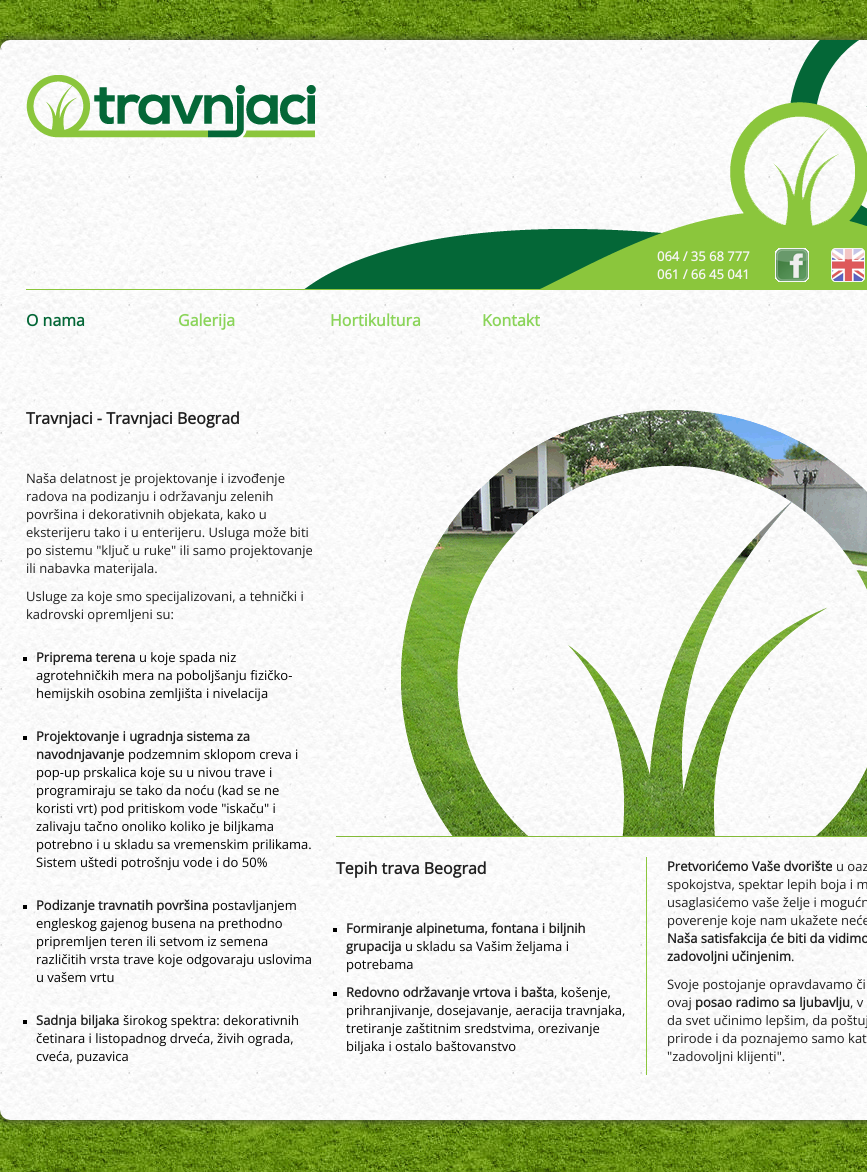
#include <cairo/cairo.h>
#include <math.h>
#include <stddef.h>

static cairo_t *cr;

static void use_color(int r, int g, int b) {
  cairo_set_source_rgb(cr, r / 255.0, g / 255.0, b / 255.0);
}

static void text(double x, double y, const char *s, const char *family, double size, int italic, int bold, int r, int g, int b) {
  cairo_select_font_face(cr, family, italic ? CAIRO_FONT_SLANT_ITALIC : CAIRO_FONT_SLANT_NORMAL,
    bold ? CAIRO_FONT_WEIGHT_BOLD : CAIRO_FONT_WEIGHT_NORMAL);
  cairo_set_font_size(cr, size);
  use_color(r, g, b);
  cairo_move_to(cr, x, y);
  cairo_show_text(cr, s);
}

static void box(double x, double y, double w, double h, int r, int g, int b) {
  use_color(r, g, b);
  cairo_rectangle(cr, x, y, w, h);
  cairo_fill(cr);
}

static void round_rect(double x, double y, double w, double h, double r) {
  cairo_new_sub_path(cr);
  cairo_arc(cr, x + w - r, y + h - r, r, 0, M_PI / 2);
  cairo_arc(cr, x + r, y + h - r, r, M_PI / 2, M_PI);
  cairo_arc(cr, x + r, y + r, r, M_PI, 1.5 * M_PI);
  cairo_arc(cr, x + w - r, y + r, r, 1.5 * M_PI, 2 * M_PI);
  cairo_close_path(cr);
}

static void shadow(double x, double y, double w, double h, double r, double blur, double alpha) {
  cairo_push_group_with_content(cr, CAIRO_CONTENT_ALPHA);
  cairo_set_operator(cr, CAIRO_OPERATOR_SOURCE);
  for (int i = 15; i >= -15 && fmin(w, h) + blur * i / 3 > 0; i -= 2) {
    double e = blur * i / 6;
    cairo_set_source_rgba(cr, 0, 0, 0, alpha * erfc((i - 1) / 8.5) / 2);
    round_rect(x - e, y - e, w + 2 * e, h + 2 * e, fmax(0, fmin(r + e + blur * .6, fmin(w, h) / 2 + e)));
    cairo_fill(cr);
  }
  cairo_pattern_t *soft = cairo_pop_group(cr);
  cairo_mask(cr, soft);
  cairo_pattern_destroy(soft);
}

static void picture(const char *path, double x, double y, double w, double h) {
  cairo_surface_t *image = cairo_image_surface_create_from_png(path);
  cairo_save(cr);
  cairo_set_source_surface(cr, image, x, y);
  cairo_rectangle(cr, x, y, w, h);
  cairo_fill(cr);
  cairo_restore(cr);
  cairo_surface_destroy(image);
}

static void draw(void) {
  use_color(255, 255, 255);
  cairo_paint(cr);
  picture("img_01.png", 0, 0, 867, 1172);
  use_color(63, 63, 63);
  shadow(0, 40, 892, 1080, 10, 5, 1);
  picture("img_02.png", 0, 40, 867, 1080);
  picture("img_03.png", 26, 40, 841, 249);
  box(26, 289, 841, 1, 139, 198, 60);
  picture("img_04.png", 775, 248, 34, 34);
  picture("img_05.png", 831, 248, 34, 34);
  picture("img_06.png", 831, 248, 34, 34);
  box(23, 657, 4, 4, 0, 0, 0);
  box(23, 736, 4, 4, 0, 0, 0);
  box(23, 905, 4, 4, 0, 0, 0);
  box(23, 1020, 4, 4, 0, 0, 0);
  box(336, 836, 531, 1, 131, 186, 56);
  picture("img_07.png", 401, 410, 466, 426);
  box(333, 928, 4, 4, 0, 0, 0);
  box(333, 992, 4, 4, 0, 0, 0);
  box(646, 857, 1, 218, 139, 198, 60);
  text(657, 261, "064 / 35 68 777", "Open Sans", 13, 0, 1, 245, 245, 245);
  text(657, 279, "061 / 66 45 041", "Open Sans", 13, 0, 1, 245, 245, 245);
  text(26, 326, "O nama", "Open Sans", 16, 0, 1, 4, 103, 55);
  text(178, 326, "Galerija", "Open Sans", 16, 0, 1, 138, 212, 89);
  text(330, 326, "Hortikultura", "Open Sans", 16, 0, 1, 138, 212, 89);
  text(482, 326, "Kontakt", "Open Sans", 16, 0, 1, 138, 212, 89);
  text(26, 424, "Travnjaci - Travnjaci Beograd", "Open Sans", 16, 0, 1, 31, 31, 31);
  text(26, 483, "Naša delatnost je projektovanje i izvođenje", "Open Sans", 13, 0, 0, 31, 31, 31);
  text(26, 501, "radova na podizanju i održavanju zelenih", "Open Sans", 13, 0, 0, 31, 31, 31);
  text(26, 519, "površina i dekorativnih objekata, kako u", "Open Sans", 13, 0, 0, 31, 31, 31);
  text(26, 537, "eksterijeru tako i u enterijeru. Usluga može biti", "Open Sans", 13, 0, 0, 31, 31, 31);
  text(26, 555, "po sistemu \"ključ u ruke\" ili samo projektovanje", "Open Sans", 13, 0, 0, 31, 31, 31);
  text(26, 573, "ili nabavka materijala.", "Open Sans", 13, 0, 0, 31, 31, 31);
  text(26, 601, "Usluge za koje smo specijalizovani, a tehnički i", "Open Sans", 13, 0, 0, 31, 31, 31);
  text(26, 619, "kadrovski opremljeni su:", "Open Sans", 13, 0, 0, 31, 31, 31);
  text(36, 662, "Priprema terena", "Open Sans", 13, 0, 1, 31, 31, 31);
  text(139, 662, "u koje spada niz", "Open Sans", 13, 0, 0, 0, 0, 0);
  text(36, 680, "agrotehničkih mera na poboljšanju fizičko-", "Open Sans", 13, 0, 0, 0, 0, 0);
  text(36, 698, "hemijskih osobina zemljišta i nivelacija", "Open Sans", 13, 0, 0, 0, 0, 0);
  text(36, 741, "Projektovanje i ugradnja sistema za", "Open Sans", 13, 0, 1, 31, 31, 31);
  text(36, 759, "navodnjavanje", "Open Sans", 13, 0, 1, 31, 31, 31);
  text(128, 759, "podzemnim sklopom creva i", "Open Sans", 13, 0, 0, 0, 0, 0);
  text(36, 777, "pop-up prskalica koje su u nivou trave i", "Open Sans", 13, 0, 0, 0, 0, 0);
  text(36, 795, "programiraju se tako da noću (kad se ne", "Open Sans", 13, 0, 0, 0, 0, 0);
  text(36, 813, "koristi vrt) pod pritiskom vode \"iskaču\" i", "Open Sans", 13, 0, 0, 0, 0, 0);
  text(36, 831, "zalivaju tačno onoliko koliko je biljkama", "Open Sans", 13, 0, 0, 0, 0, 0);
  text(36, 849, "potrebno i u skladu sa vremenskim prilikama.", "Open Sans", 13, 0, 0, 0, 0, 0);
  text(36, 867, "Sistem uštedi potrošnju vode i do 50%", "Open Sans", 13, 0, 0, 0, 0, 0);
  text(36, 910, "Podizanje travnatih površina", "Open Sans", 13, 0, 1, 31, 31, 31);
  text(212, 910, "postavljanjem", "Open Sans", 13, 0, 0, 0, 0, 0);
  text(36, 928, "engleskog gajenog busena na prethodno", "Open Sans", 13, 0, 0, 0, 0, 0);
  text(36, 946, "pripremljen teren ili setvom iz semena", "Open Sans", 13, 0, 0, 0, 0, 0);
  text(36, 964, "različitih vrsta trave koje odgovaraju uslovima", "Open Sans", 13, 0, 0, 0, 0, 0);
  text(36, 982, "u vašem vrtu", "Open Sans", 13, 0, 0, 0, 0, 0);
  text(36, 1025, "Sadnja biljaka", "Open Sans", 13, 0, 1, 31, 31, 31);
  text(123, 1025, "širokog spektra: dekorativnih", "Open Sans", 13, 0, 0, 0, 0, 0);
  text(36, 1043, "četinara i listopadnog drveća, živih ograda,", "Open Sans", 13, 0, 0, 0, 0, 0);
  text(36, 1061, "cveća, puzavica", "Open Sans", 13, 0, 0, 0, 0, 0);
  text(336, 874, "Tepih trava Beograd", "Open Sans", 16, 0, 1, 31, 31, 31);
  text(346, 933, "Formiranje alpinetuma, fontana i biljnih", "Open Sans", 13, 0, 1, 31, 31, 31);
  text(346, 951, "grupacija", "Open Sans", 13, 0, 1, 31, 31, 31);
  text(405, 951, "u skladu sa Vašim željama i", "Open Sans", 13, 0, 0, 0, 0, 0);
  text(346, 969, "potrebama", "Open Sans", 13, 0, 0, 0, 0, 0);
  text(346, 997, "Redovno održavanje vrtova i bašta", "Open Sans", 13, 0, 1, 31, 31, 31);
  text(554, 997, ", košenje,", "Open Sans", 13, 0, 0, 0, 0, 0);
  text(346, 1015, "prihranjivanje, dosejavanje, aeracija travnjaka,", "Open Sans", 13, 0, 0, 0, 0, 0);
  text(346, 1033, "tretiranje zaštitnim sredstvima, orezivanje", "Open Sans", 13, 0, 0, 0, 0, 0);
  text(346, 1051, "biljaka i ostalo baštovanstvo", "Open Sans", 13, 0, 0, 0, 0, 0);
  text(667, 871, "Pretvorićemo Vaše dvorište", "Open Sans", 13, 0, 1, 31, 31, 31);
  text(836, 871, "u oaz", "Open Sans", 13, 0, 0, 31, 31, 31);
  text(667, 889, "spokojstva, spektar lepih boja i m", "Open Sans", 13, 0, 0, 31, 31, 31);
  text(667, 907, "usaglasićemo vaše želje i mogućn", "Open Sans", 13, 0, 0, 31, 31, 31);
  text(667, 925, "poverenje koje nam ukažete neće", "Open Sans", 13, 0, 0, 31, 31, 31);
  text(667, 943, "Naša satisfakcija će biti da vidimo", "Open Sans", 13, 0, 1, 31, 31, 31);
  text(667, 961, "zadovoljni učinjenim", "Open Sans", 13, 0, 1, 31, 31, 31);
  text(791, 961, ".", "Open Sans", 13, 0, 0, 31, 31, 31);
  text(667, 989, "Svoje postojanje opravdavamo či", "Open Sans", 13, 0, 0, 31, 31, 31);
  text(667, 1007, "ovaj", "Open Sans", 13, 0, 0, 31, 31, 31);
  text(695, 1007, "posao radimo sa ljubavlju", "Open Sans", 13, 0, 1, 31, 31, 31);
  text(850, 1007, ", v", "Open Sans", 13, 0, 0, 31, 31, 31);
  text(667, 1025, "da svet učinimo lepšim, da poštuj", "Open Sans", 13, 0, 0, 31, 31, 31);
  text(667, 1043, "prirode i da poznajemo samo kat", "Open Sans", 13, 0, 0, 31, 31, 31);
  text(667, 1061, "\"zadovoljni klijenti\".", "Open Sans", 13, 0, 0, 31, 31, 31);
}

int main(void) {
  cairo_surface_t *surface = cairo_image_surface_create(CAIRO_FORMAT_RGB24, 867, 1172);
  cr = cairo_create(surface);
  cairo_font_options_t *options = cairo_font_options_create();
  cairo_font_options_set_hint_metrics(options, CAIRO_HINT_METRICS_OFF);
  cairo_font_options_set_hint_style(options, CAIRO_HINT_STYLE_NONE);
  cairo_set_font_options(cr, options);
  cairo_set_miter_limit(cr, 4);
  draw();
  cairo_surface_write_to_png(surface, "out.png");
  cairo_font_options_destroy(options);
  cairo_destroy(cr);
  cairo_surface_destroy(surface);
  return 0;
}
